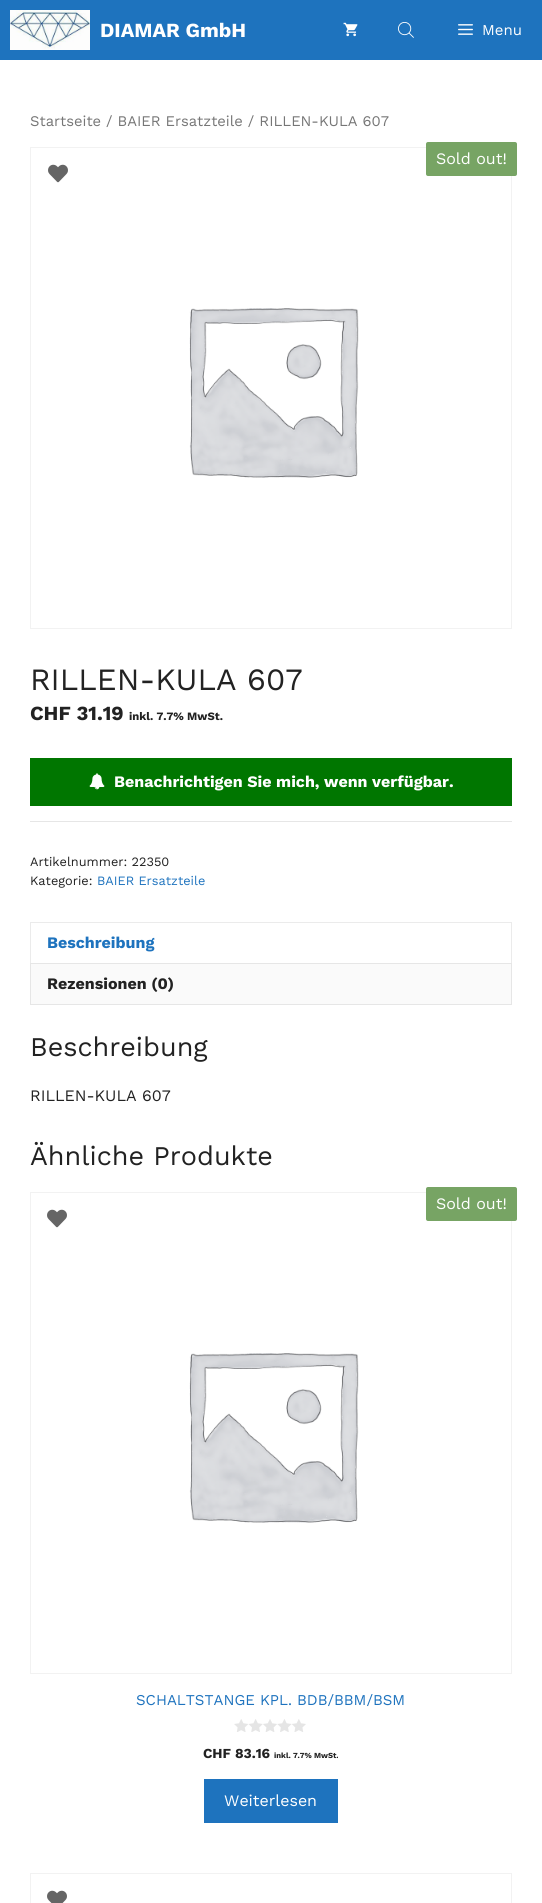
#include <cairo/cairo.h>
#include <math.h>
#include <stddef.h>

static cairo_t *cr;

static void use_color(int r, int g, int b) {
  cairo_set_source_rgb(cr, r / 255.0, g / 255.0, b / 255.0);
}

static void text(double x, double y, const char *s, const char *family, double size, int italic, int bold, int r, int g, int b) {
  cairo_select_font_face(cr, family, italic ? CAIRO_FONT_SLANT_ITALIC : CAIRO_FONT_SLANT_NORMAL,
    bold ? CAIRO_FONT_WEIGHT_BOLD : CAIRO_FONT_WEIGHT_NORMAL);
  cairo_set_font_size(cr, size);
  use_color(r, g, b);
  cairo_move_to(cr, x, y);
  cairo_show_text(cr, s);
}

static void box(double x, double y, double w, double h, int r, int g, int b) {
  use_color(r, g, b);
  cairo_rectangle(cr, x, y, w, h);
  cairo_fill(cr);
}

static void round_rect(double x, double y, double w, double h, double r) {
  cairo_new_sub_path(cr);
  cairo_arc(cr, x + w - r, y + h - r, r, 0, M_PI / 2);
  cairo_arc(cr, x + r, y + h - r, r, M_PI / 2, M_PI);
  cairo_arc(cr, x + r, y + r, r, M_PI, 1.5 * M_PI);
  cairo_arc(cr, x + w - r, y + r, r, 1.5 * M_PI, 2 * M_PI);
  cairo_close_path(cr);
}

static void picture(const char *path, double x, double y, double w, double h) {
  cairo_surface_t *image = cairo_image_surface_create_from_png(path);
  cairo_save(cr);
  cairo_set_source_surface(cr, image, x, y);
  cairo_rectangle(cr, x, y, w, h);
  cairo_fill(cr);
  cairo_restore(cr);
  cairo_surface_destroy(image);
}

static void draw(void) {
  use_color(255, 255, 255);
  cairo_paint(cr);
  box(0, 0, 542, 60, 30, 115, 190);
  picture("img_01.png", 10, 10, 80, 40);
  picture("img_02.png", 343, 22, 15, 15);
  picture("img_03.png", 398, 22, 16, 16);
  picture("img_04.png", 458, 24, 15, 11);
  cairo_rectangle(cr, 30.5, 147.5, 481, 481);
  use_color(242, 242, 242);
  cairo_set_line_width(cr, 1);
  cairo_stroke(cr);
  picture("img_05.png", 189, 308, 170, 170);
  picture("img_06.png", 48, 164, 20, 19);
  use_color(119, 164, 100);
  round_rect(426, 142, 91, 34, 2);
  cairo_fill(cr);
  box(30, 758, 482, 48, 0, 118, 0);
  picture("img_07.png", 89, 773, 16, 17);
  box(30, 821, 482, 1, 230, 230, 230);
  use_color(235, 235, 235);
  cairo_new_path(cr);
  cairo_move_to(cr, 30, 922);
  cairo_line_to(cr, 512, 922);
  cairo_line_to(cr, 511, 923);
  cairo_line_to(cr, 31, 923);
  cairo_close_path(cr);
  cairo_fill(cr);
  cairo_set_source_rgba(cr, 0, 0, 0, 0.08);
  cairo_new_path(cr);
  cairo_move_to(cr, 512, 922);
  cairo_line_to(cr, 512, 963);
  cairo_line_to(cr, 511, 963);
  cairo_line_to(cr, 511, 923);
  cairo_close_path(cr);
  cairo_fill(cr);
  cairo_new_path(cr);
  cairo_move_to(cr, 30, 963);
  cairo_line_to(cr, 30, 922);
  cairo_line_to(cr, 31, 923);
  cairo_line_to(cr, 31, 963);
  cairo_close_path(cr);
  cairo_fill(cr);
  use_color(250, 250, 250);
  cairo_rectangle(cr, 30.5, 963.5, 481, 41);
  cairo_fill_preserve(cr);
  use_color(230, 230, 230);
  cairo_stroke(cr);
  cairo_rectangle(cr, 30.5, 1192.5, 481, 481);
  use_color(242, 242, 242);
  cairo_stroke(cr);
  picture("img_06.png", 47, 1209, 20, 19);
  picture("img_05.png", 189, 1353, 170, 170);
  use_color(119, 164, 100);
  round_rect(426, 1187, 91, 34, 2);
  cairo_fill(cr);
  picture("img_08.png", 234, 1719, 72, 13);
  box(204, 1779, 134, 44, 30, 115, 190);
  cairo_rectangle(cr, 30.5, 1873.5, 481, 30);
  use_color(242, 242, 242);
  cairo_stroke(cr);
  picture("img_09.png", 47, 1890, 20, 13);
  text(100, 37, "DIAMAR GmbH", "Work Sans", 20, 0, 1, 255, 255, 255);
  text(482, 35, "Menu", "Work Sans", 15, 0, 0, 255, 255, 255);
  text(30, 126, "Startseite / BAIER Ersatzteile / RILLEN-KULA 607", "Work Sans", 14.75, 0, 0, 118, 118, 118);
  text(436, 164, "Sold out!", "Work Sans", 16, 0, 0, 255, 255, 255);
  text(30, 690, "RILLEN-KULA 607", "Work Sans", 31, 0, 0, 34, 34, 34);
  text(30, 720, "CHF 31.19", "Work Sans", 20, 0, 1, 34, 34, 34);
  text(129, 720, "inkl. 7.7% MwSt.", "Work Sans", 11.25, 0, 1, 34, 34, 34);
  text(114, 787, "Benachrichtigen Sie mich, wenn verfügbar.", "Work Sans", 16, 0, 1, 255, 255, 255);
  text(30, 866, "Artikelnummer: 22350", "Work Sans", 12.75, 0, 0, 34, 34, 34);
  text(30, 885, "Kategorie:", "Work Sans", 12.75, 0, 0, 34, 34, 34);
  text(97, 885, "BAIER Ersatzteile", "Work Sans", 12.75, 0, 0, 30, 115, 190);
  text(47, 948, "Beschreibung", "Work Sans", 16, 0, 1, 30, 115, 190);
  text(47, 989, "Rezensionen (0)", "Work Sans", 16, 0, 1, 34, 34, 34);
  text(30, 1056, "Beschreibung", "Work Sans", 27, 0, 0, 34, 34, 34);
  text(30, 1101, "RILLEN-KULA 607", "Work Sans", 16, 0, 0, 34, 34, 34);
  text(30, 1165, "Ähnliche Produkte", "Work Sans", 27, 0, 0, 34, 34, 34);
  text(436, 1209, "Sold out!", "Work Sans", 16, 0, 0, 255, 255, 255);
  text(136, 1705, "SCHALTSTANGE KPL. BDB/BBM/BSM", "Work Sans", 15, 0, 0, 30, 115, 190);
  text(203, 1758, "CHF 83.16", "Work Sans", 13.75, 0, 1, 34, 34, 34);
  text(274, 1758, "inkl. 7.7% MwSt.", "Work Sans", 7.75, 0, 1, 34, 34, 34);
  text(224, 1806, "Weiterlesen", "Work Sans", 16, 0, 0, 255, 255, 255);
}

int main(void) {
  cairo_surface_t *surface = cairo_image_surface_create(CAIRO_FORMAT_RGB24, 542, 1903);
  cr = cairo_create(surface);
  cairo_font_options_t *options = cairo_font_options_create();
  cairo_font_options_set_hint_metrics(options, CAIRO_HINT_METRICS_OFF);
  cairo_font_options_set_hint_style(options, CAIRO_HINT_STYLE_NONE);
  cairo_set_font_options(cr, options);
  cairo_set_miter_limit(cr, 4);
  draw();
  cairo_surface_write_to_png(surface, "out.png");
  cairo_font_options_destroy(options);
  cairo_destroy(cr);
  cairo_surface_destroy(surface);
  return 0;
}
